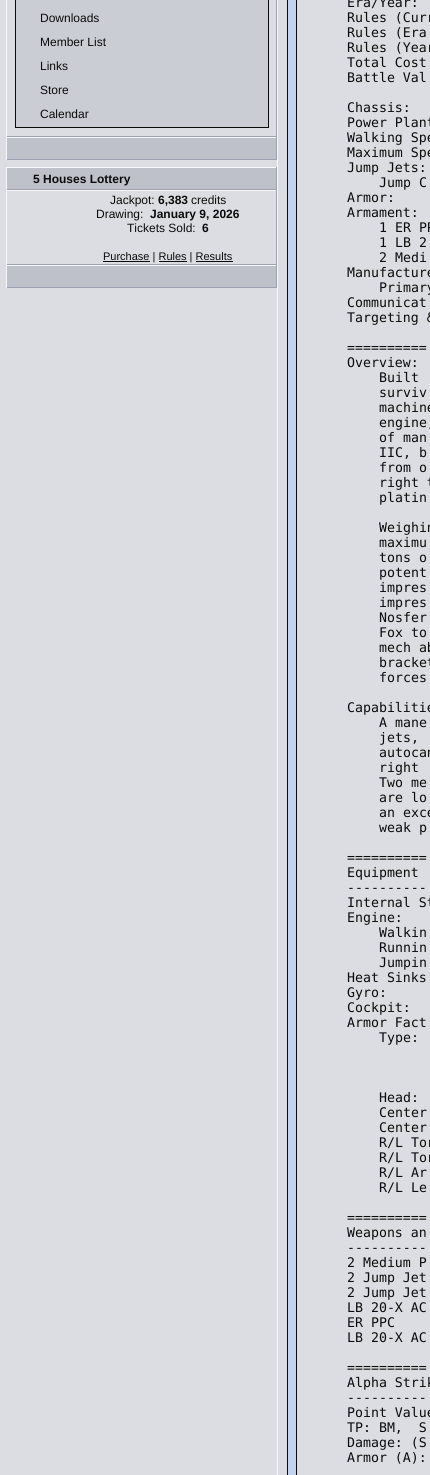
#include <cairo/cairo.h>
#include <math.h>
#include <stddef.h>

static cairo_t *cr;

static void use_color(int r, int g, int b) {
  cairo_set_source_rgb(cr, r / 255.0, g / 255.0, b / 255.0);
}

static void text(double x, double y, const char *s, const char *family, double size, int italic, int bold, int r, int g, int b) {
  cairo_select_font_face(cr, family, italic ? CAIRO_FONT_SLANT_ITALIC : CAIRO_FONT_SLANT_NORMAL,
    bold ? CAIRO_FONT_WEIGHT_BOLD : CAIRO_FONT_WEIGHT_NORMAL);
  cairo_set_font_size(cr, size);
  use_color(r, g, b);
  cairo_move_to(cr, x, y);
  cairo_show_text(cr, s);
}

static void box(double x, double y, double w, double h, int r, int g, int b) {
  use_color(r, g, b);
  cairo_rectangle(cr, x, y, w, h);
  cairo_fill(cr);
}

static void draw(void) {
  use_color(220, 221, 226);
  cairo_paint(cr);
  box(276, 0, 1, 137, 158, 161, 178);
  box(6, 136, 271, 1, 158, 161, 178);
  box(6, 0, 1, 137, 248, 248, 250);
  cairo_rectangle(cr, 15.5, -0.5, 253, 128);
  use_color(11, 11, 11);
  cairo_set_line_width(cr, 1);
  cairo_stroke(cr);
  box(16, 0, 252, 127, 203, 205, 213);
  box(7, 138, 269, 21, 191, 193, 202);
  box(6, 137, 271, 1, 248, 248, 250);
  box(6, 159, 245, 1, 158, 161, 178);
  box(6, 137, 1, 23, 248, 248, 250);
  box(276, 137, 1, 23, 158, 161, 178);
  box(251, 159, 26, 1, 158, 161, 178);
  box(7, 168, 269, 21, 191, 193, 202);
  box(6, 167, 271, 1, 248, 248, 250);
  box(6, 189, 245, 1, 158, 161, 178);
  box(6, 167, 1, 23, 248, 248, 250);
  box(276, 167, 1, 23, 158, 161, 178);
  box(251, 189, 26, 1, 158, 161, 178);
  box(6, 190, 271, 1, 248, 248, 250);
  box(276, 190, 1, 75, 158, 161, 178);
  box(6, 264, 271, 1, 158, 161, 178);
  box(6, 190, 1, 75, 248, 248, 250);
  box(103, 261, 47, 1, 11, 11, 11);
  box(159, 261, 28, 1, 11, 11, 11);
  box(196, 261, 37, 1, 11, 11, 11);
  box(7, 266, 269, 21, 191, 193, 202);
  box(6, 265, 271, 1, 248, 248, 250);
  box(6, 287, 245, 1, 158, 161, 178);
  box(6, 265, 1, 23, 248, 248, 250);
  box(276, 265, 1, 23, 158, 161, 178);
  box(251, 287, 26, 1, 158, 161, 178);
  box(277, 0, 1, 1475, 248, 248, 250);
  box(288, 0, 8, 1475, 195, 210, 239);
  box(287, 0, 1, 1475, 11, 11, 11);
  cairo_rectangle(cr, 296.5, -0.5, 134, 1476);
  cairo_stroke(cr);
  text(40, 22, "Downloads", "Liberation Sans", 12, 0, 0, 11, 11, 11);
  text(40, 46, "Member List", "Liberation Sans", 12, 0, 0, 11, 11, 11);
  text(40, 70, "Links", "Liberation Sans", 12, 0, 0, 11, 11, 11);
  text(40, 94, "Store", "Liberation Sans", 12, 0, 0, 11, 11, 11);
  text(40, 118, "Calendar", "Liberation Sans", 12, 0, 0, 11, 11, 11);
  text(33, 183, "5 Houses Lottery", "Liberation Sans", 12, 0, 1, 11, 11, 11);
  text(110, 204, "Jackpot:", "Liberation Sans", 12, 0, 0, 11, 11, 11);
  text(158, 204, "6,383", "Liberation Sans", 12, 0, 1, 11, 11, 11);
  text(191, 204, "credits", "Liberation Sans", 12, 0, 0, 11, 11, 11);
  text(96, 218, "Drawing:", "Liberation Sans", 12, 0, 0, 11, 11, 11);
  text(150, 218, "January 9, 2026", "Liberation Sans", 12, 0, 1, 11, 11, 11);
  text(127, 232, "Tickets Sold:", "Liberation Sans", 12, 0, 0, 11, 11, 11);
  text(202, 232, "6", "Liberation Sans", 12, 0, 1, 11, 11, 11);
  text(103, 260, "Purchase | Rules | Results", "Liberation Sans", 11, 0, 0, 11, 11, 11);
  text(347, 7, "Era/Year:", "DejaVu Sans Mono", 13.25, 0, 0, 11, 11, 11);
  text(347, 22, "Rules (Curr", "DejaVu Sans Mono", 13.25, 0, 0, 11, 11, 11);
  text(347, 37, "Rules (Era", "DejaVu Sans Mono", 13.25, 0, 0, 11, 11, 11);
  text(347, 52, "Rules (Year", "DejaVu Sans Mono", 13.25, 0, 0, 11, 11, 11);
  text(347, 67, "Total Cost", "DejaVu Sans Mono", 13.25, 0, 0, 11, 11, 11);
  text(347, 82, "Battle Val", "DejaVu Sans Mono", 13.25, 0, 0, 11, 11, 11);
  text(347, 112, "Chassis:", "DejaVu Sans Mono", 13.25, 0, 0, 11, 11, 11);
  text(347, 127, "Power Plant", "DejaVu Sans Mono", 13.25, 0, 0, 11, 11, 11);
  text(347, 142, "Walking Spe", "DejaVu Sans Mono", 13.25, 0, 0, 11, 11, 11);
  text(347, 157, "Maximum Spe", "DejaVu Sans Mono", 13.25, 0, 0, 11, 11, 11);
  text(347, 172, "Jump Jets:", "DejaVu Sans Mono", 13.25, 0, 0, 11, 11, 11);
  text(379, 187, "Jump C", "DejaVu Sans Mono", 13.25, 0, 0, 11, 11, 11);
  text(347, 202, "Armor:", "DejaVu Sans Mono", 13.25, 0, 0, 11, 11, 11);
  text(347, 217, "Armament:", "DejaVu Sans Mono", 13.25, 0, 0, 11, 11, 11);
  text(379, 232, "1 ER PP", "DejaVu Sans Mono", 13.25, 0, 0, 11, 11, 11);
  text(379, 247, "1 LB 2", "DejaVu Sans Mono", 13.25, 0, 0, 11, 11, 11);
  text(379, 262, "2 Medi", "DejaVu Sans Mono", 13.25, 0, 0, 11, 11, 11);
  text(347, 277, "Manufacture", "DejaVu Sans Mono", 13.25, 0, 0, 11, 11, 11);
  text(379, 292, "Primary", "DejaVu Sans Mono", 13.25, 0, 0, 11, 11, 11);
  text(347, 307, "Communicat", "DejaVu Sans Mono", 13.25, 0, 0, 11, 11, 11);
  text(347, 322, "Targeting &", "DejaVu Sans Mono", 13.25, 0, 0, 11, 11, 11);
  text(347, 352, "==========", "DejaVu Sans Mono", 13.25, 0, 0, 11, 11, 11);
  text(347, 367, "Overview:", "DejaVu Sans Mono", 13.25, 0, 0, 11, 11, 11);
  text(379, 382, "Built", "DejaVu Sans Mono", 13.25, 0, 0, 11, 11, 11);
  text(379, 397, "surviv", "DejaVu Sans Mono", 13.25, 0, 0, 11, 11, 11);
  text(379, 412, "machine", "DejaVu Sans Mono", 13.25, 0, 0, 11, 11, 11);
  text(379, 427, "engine,", "DejaVu Sans Mono", 13.25, 0, 0, 11, 11, 11);
  text(379, 442, "of man", "DejaVu Sans Mono", 13.25, 0, 0, 11, 11, 11);
  text(379, 457, "IIC, b", "DejaVu Sans Mono", 13.25, 0, 0, 11, 11, 11);
  text(379, 472, "from o", "DejaVu Sans Mono", 13.25, 0, 0, 11, 11, 11);
  text(379, 487, "right t", "DejaVu Sans Mono", 13.25, 0, 0, 11, 11, 11);
  text(379, 502, "platin", "DejaVu Sans Mono", 13.25, 0, 0, 11, 11, 11);
  text(379, 532, "Weighin", "DejaVu Sans Mono", 13.25, 0, 0, 11, 11, 11);
  text(379, 547, "maximu", "DejaVu Sans Mono", 13.25, 0, 0, 11, 11, 11);
  text(379, 562, "tons o", "DejaVu Sans Mono", 13.25, 0, 0, 11, 11, 11);
  text(379, 577, "potent", "DejaVu Sans Mono", 13.25, 0, 0, 11, 11, 11);
  text(379, 592, "impres", "DejaVu Sans Mono", 13.25, 0, 0, 11, 11, 11);
  text(379, 607, "impres", "DejaVu Sans Mono", 13.25, 0, 0, 11, 11, 11);
  text(379, 622, "Nosfer", "DejaVu Sans Mono", 13.25, 0, 0, 11, 11, 11);
  text(379, 637, "Fox to", "DejaVu Sans Mono", 13.25, 0, 0, 11, 11, 11);
  text(379, 652, "mech ab", "DejaVu Sans Mono", 13.25, 0, 0, 11, 11, 11);
  text(379, 667, "bracket", "DejaVu Sans Mono", 13.25, 0, 0, 11, 11, 11);
  text(379, 682, "forces", "DejaVu Sans Mono", 13.25, 0, 0, 11, 11, 11);
  text(347, 712, "Capabilitie", "DejaVu Sans Mono", 13.25, 0, 0, 11, 11, 11);
  text(379, 727, "A mane", "DejaVu Sans Mono", 13.25, 0, 0, 11, 11, 11);
  text(379, 742, "jets,", "DejaVu Sans Mono", 13.25, 0, 0, 11, 11, 11);
  text(379, 757, "autocan", "DejaVu Sans Mono", 13.25, 0, 0, 11, 11, 11);
  text(379, 772, "right", "DejaVu Sans Mono", 13.25, 0, 0, 11, 11, 11);
  text(379, 787, "Two me", "DejaVu Sans Mono", 13.25, 0, 0, 11, 11, 11);
  text(379, 802, "are lo", "DejaVu Sans Mono", 13.25, 0, 0, 11, 11, 11);
  text(379, 817, "an exce", "DejaVu Sans Mono", 13.25, 0, 0, 11, 11, 11);
  text(379, 832, "weak p", "DejaVu Sans Mono", 13.25, 0, 0, 11, 11, 11);
  text(347, 862, "==========", "DejaVu Sans Mono", 13.25, 0, 0, 11, 11, 11);
  text(347, 877, "Equipment", "DejaVu Sans Mono", 13.25, 0, 0, 11, 11, 11);
  text(347, 892, "----------", "DejaVu Sans Mono", 13.25, 0, 0, 11, 11, 11);
  text(347, 907, "Internal St", "DejaVu Sans Mono", 13.25, 0, 0, 11, 11, 11);
  text(347, 922, "Engine:", "DejaVu Sans Mono", 13.25, 0, 0, 11, 11, 11);
  text(379, 937, "Walkin", "DejaVu Sans Mono", 13.25, 0, 0, 11, 11, 11);
  text(379, 952, "Runnin", "DejaVu Sans Mono", 13.25, 0, 0, 11, 11, 11);
  text(379, 967, "Jumpin", "DejaVu Sans Mono", 13.25, 0, 0, 11, 11, 11);
  text(347, 982, "Heat Sinks", "DejaVu Sans Mono", 13.25, 0, 0, 11, 11, 11);
  text(347, 997, "Gyro:", "DejaVu Sans Mono", 13.25, 0, 0, 11, 11, 11);
  text(347, 1012, "Cockpit:", "DejaVu Sans Mono", 13.25, 0, 0, 11, 11, 11);
  text(347, 1027, "Armor Fact", "DejaVu Sans Mono", 13.25, 0, 0, 11, 11, 11);
  text(379, 1042, "Type:", "DejaVu Sans Mono", 13.25, 0, 0, 11, 11, 11);
  text(379, 1102, "Head:", "DejaVu Sans Mono", 13.25, 0, 0, 11, 11, 11);
  text(379, 1117, "Center", "DejaVu Sans Mono", 13.25, 0, 0, 11, 11, 11);
  text(379, 1132, "Center", "DejaVu Sans Mono", 13.25, 0, 0, 11, 11, 11);
  text(379, 1147, "R/L Tor", "DejaVu Sans Mono", 13.25, 0, 0, 11, 11, 11);
  text(379, 1162, "R/L Tor", "DejaVu Sans Mono", 13.25, 0, 0, 11, 11, 11);
  text(379, 1177, "R/L Ar", "DejaVu Sans Mono", 13.25, 0, 0, 11, 11, 11);
  text(379, 1192, "R/L Le", "DejaVu Sans Mono", 13.25, 0, 0, 11, 11, 11);
  text(347, 1222, "==========", "DejaVu Sans Mono", 13.25, 0, 0, 11, 11, 11);
  text(347, 1237, "Weapons an", "DejaVu Sans Mono", 13.25, 0, 0, 11, 11, 11);
  text(347, 1252, "----------", "DejaVu Sans Mono", 13.25, 0, 0, 11, 11, 11);
  text(347, 1267, "2 Medium P", "DejaVu Sans Mono", 13.25, 0, 0, 11, 11, 11);
  text(347, 1282, "2 Jump Jet", "DejaVu Sans Mono", 13.25, 0, 0, 11, 11, 11);
  text(347, 1297, "2 Jump Jet", "DejaVu Sans Mono", 13.25, 0, 0, 11, 11, 11);
  text(347, 1312, "LB 20-X AC", "DejaVu Sans Mono", 13.25, 0, 0, 11, 11, 11);
  text(347, 1327, "ER PPC", "DejaVu Sans Mono", 13.25, 0, 0, 11, 11, 11);
  text(347, 1342, "LB 20-X AC", "DejaVu Sans Mono", 13.25, 0, 0, 11, 11, 11);
  text(347, 1372, "==========", "DejaVu Sans Mono", 13.25, 0, 0, 11, 11, 11);
  text(347, 1387, "Alpha Strik", "DejaVu Sans Mono", 13.25, 0, 0, 11, 11, 11);
  text(347, 1402, "----------", "DejaVu Sans Mono", 13.25, 0, 0, 11, 11, 11);
  text(347, 1417, "Point Value", "DejaVu Sans Mono", 13.25, 0, 0, 11, 11, 11);
  text(347, 1432, "TP: BM,  S", "DejaVu Sans Mono", 13.25, 0, 0, 11, 11, 11);
  text(347, 1447, "Damage: (S", "DejaVu Sans Mono", 13.25, 0, 0, 11, 11, 11);
  text(347, 1462, "Armor (A):", "DejaVu Sans Mono", 13.25, 0, 0, 11, 11, 11);
}

int main(void) {
  cairo_surface_t *surface = cairo_image_surface_create(CAIRO_FORMAT_RGB24, 430, 1475);
  cr = cairo_create(surface);
  cairo_font_options_t *options = cairo_font_options_create();
  cairo_font_options_set_hint_metrics(options, CAIRO_HINT_METRICS_OFF);
  cairo_font_options_set_hint_style(options, CAIRO_HINT_STYLE_NONE);
  cairo_set_font_options(cr, options);
  cairo_set_miter_limit(cr, 4);
  draw();
  cairo_surface_write_to_png(surface, "out.png");
  cairo_font_options_destroy(options);
  cairo_destroy(cr);
  cairo_surface_destroy(surface);
  return 0;
}
